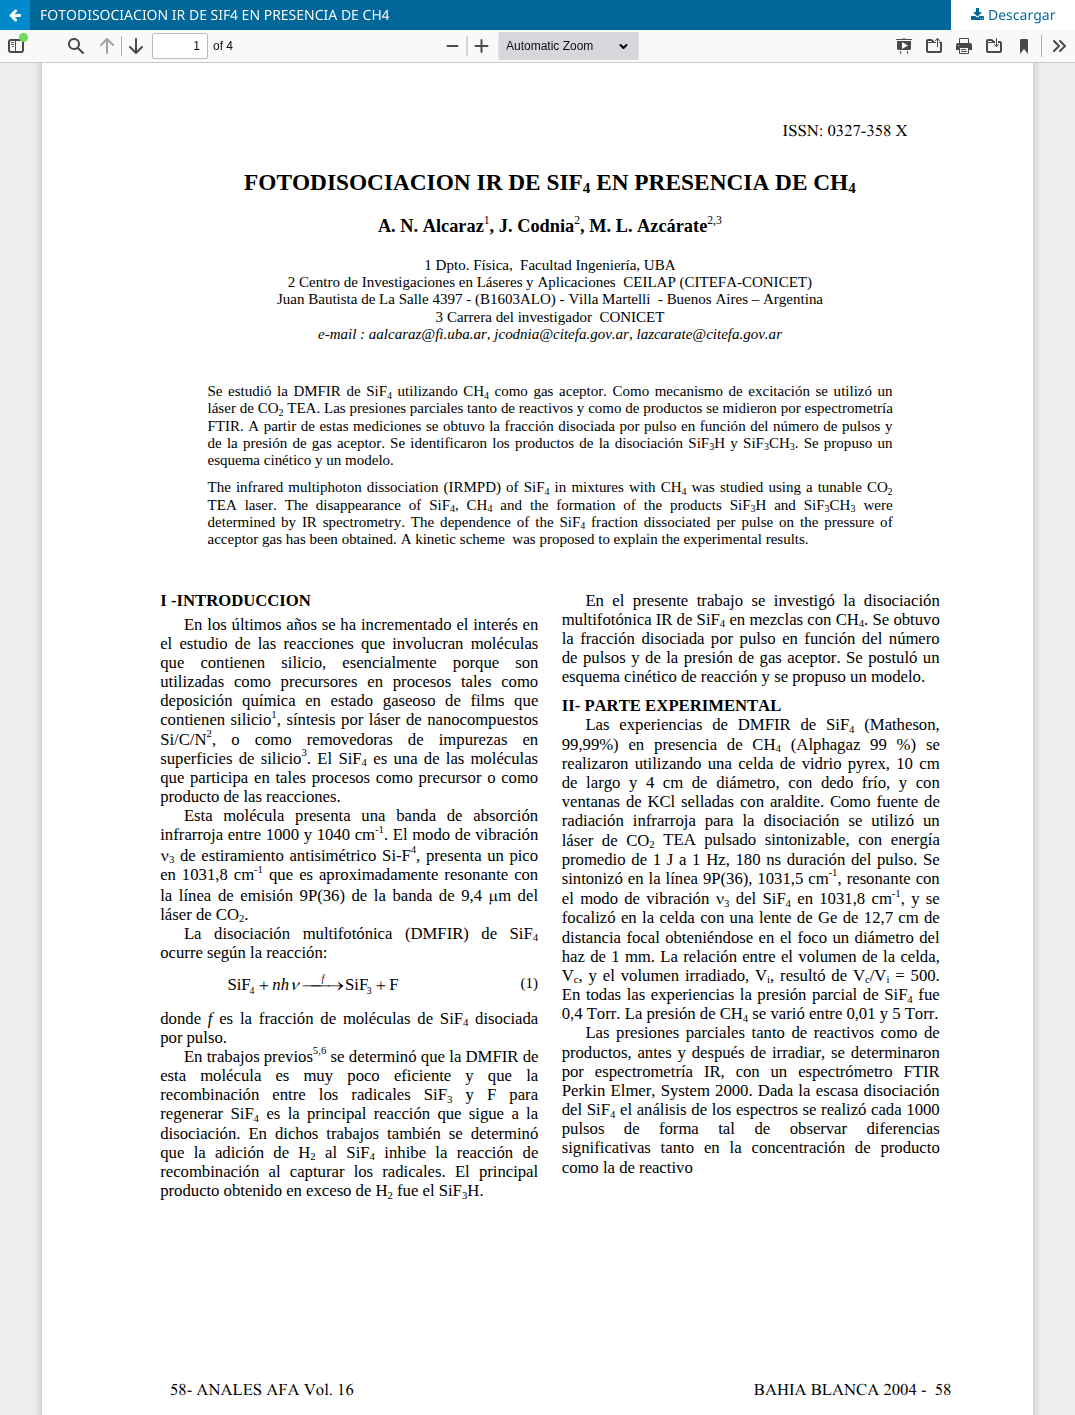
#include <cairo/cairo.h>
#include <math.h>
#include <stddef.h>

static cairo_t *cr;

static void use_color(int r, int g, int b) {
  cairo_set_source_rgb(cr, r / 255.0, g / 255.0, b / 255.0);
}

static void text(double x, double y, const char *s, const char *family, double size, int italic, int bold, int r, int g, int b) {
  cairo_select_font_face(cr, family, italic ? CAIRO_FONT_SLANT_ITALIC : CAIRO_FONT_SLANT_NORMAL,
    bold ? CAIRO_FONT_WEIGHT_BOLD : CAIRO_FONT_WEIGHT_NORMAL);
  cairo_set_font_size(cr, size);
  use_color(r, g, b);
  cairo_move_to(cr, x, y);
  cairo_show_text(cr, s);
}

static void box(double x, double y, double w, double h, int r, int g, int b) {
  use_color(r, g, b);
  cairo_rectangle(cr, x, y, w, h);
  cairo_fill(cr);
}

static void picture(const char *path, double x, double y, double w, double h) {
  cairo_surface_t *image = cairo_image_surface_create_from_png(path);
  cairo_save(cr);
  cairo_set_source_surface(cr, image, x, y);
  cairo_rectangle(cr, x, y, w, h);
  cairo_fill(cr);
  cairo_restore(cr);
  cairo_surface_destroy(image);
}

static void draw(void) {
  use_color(255, 255, 255);
  cairo_paint(cr);
  box(30, 0, 921, 30, 0, 103, 152);
  box(0, 0, 30, 30, 0, 138, 203);
  picture("img_01.png", 9, 9, 12, 13);
  picture("img_02.png", 971, 8, 13, 12);
  picture("img_03.png", 0, 30, 1075, 1385);
  text(40, 20, "FOTODISOCIACION IR DE SIF4 EN PRESENCIA DE CH4", "Noto Sans", 14, 0, 0, 255, 255, 255);
  text(988, 20, "Descargar", "Noto Sans", 14, 0, 0, 0, 103, 152);
}

int main(void) {
  cairo_surface_t *surface = cairo_image_surface_create(CAIRO_FORMAT_RGB24, 1075, 1415);
  cr = cairo_create(surface);
  cairo_font_options_t *options = cairo_font_options_create();
  cairo_font_options_set_hint_metrics(options, CAIRO_HINT_METRICS_OFF);
  cairo_font_options_set_hint_style(options, CAIRO_HINT_STYLE_NONE);
  cairo_set_font_options(cr, options);
  cairo_set_miter_limit(cr, 4);
  draw();
  cairo_surface_write_to_png(surface, "out.png");
  cairo_font_options_destroy(options);
  cairo_destroy(cr);
  cairo_surface_destroy(surface);
  return 0;
}
